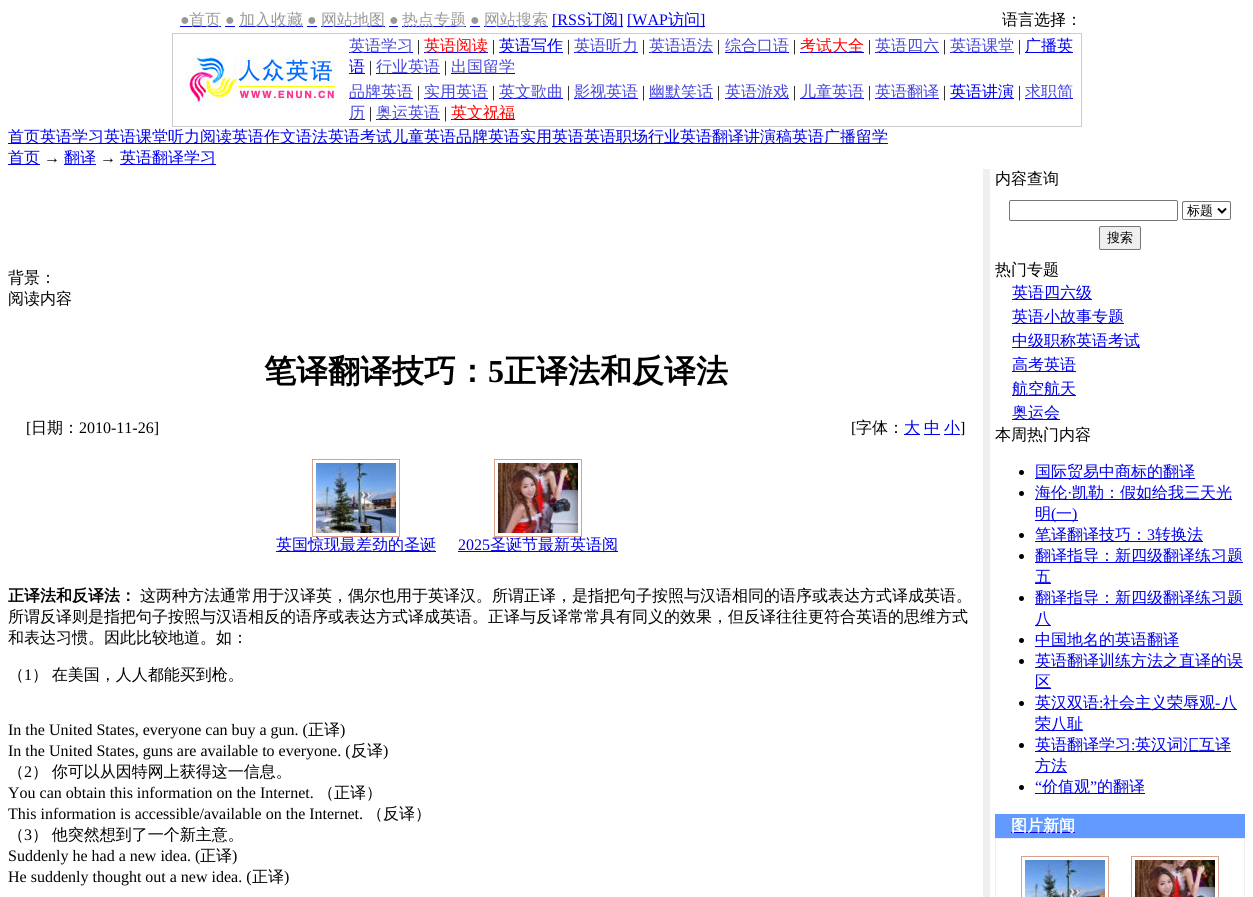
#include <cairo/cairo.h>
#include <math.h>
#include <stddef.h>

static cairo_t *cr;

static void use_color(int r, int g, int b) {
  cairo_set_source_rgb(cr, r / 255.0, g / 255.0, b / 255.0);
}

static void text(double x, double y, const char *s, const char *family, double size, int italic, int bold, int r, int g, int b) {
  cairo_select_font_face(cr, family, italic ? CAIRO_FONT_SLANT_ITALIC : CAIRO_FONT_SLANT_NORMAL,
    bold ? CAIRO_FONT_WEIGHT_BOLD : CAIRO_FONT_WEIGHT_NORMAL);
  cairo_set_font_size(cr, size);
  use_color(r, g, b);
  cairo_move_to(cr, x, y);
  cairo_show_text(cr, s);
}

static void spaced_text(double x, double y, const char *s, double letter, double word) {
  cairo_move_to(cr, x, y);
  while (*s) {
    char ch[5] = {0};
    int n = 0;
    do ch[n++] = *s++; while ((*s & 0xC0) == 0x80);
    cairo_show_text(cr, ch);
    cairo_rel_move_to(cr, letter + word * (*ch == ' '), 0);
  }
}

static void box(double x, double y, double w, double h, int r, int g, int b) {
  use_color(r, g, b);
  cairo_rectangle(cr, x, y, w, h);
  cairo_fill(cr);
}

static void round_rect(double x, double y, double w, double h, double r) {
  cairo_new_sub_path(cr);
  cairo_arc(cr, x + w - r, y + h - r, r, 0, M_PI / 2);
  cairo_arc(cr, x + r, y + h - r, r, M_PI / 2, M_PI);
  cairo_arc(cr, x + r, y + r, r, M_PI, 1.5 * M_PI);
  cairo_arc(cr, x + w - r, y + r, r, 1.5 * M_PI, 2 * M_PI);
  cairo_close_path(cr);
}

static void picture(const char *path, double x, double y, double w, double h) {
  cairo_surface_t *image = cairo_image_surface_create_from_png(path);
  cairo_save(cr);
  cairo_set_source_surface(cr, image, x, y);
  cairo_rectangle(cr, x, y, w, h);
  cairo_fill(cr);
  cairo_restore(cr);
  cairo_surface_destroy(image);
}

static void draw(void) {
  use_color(255, 255, 255);
  cairo_paint(cr);
  box(180, 26, 41, 1, 0, 0, 238);
  box(225, 26, 10, 1, 0, 0, 238);
  box(239, 26, 64, 1, 0, 0, 238);
  box(307, 26, 10, 1, 0, 0, 238);
  box(321, 26, 64, 1, 0, 0, 238);
  box(389, 26, 9, 1, 0, 0, 238);
  box(402, 26, 64, 1, 0, 0, 238);
  box(470, 26, 10, 1, 0, 0, 238);
  box(484, 26, 64, 1, 0, 0, 238);
  box(552, 26, 71, 1, 0, 0, 238);
  box(627, 26, 78, 1, 0, 0, 238);
  box(172, 33, 910, 94, 204, 204, 204);
  box(173, 34, 908, 92, 255, 255, 255);
  picture("img_01.png", 185, 55, 150, 48);
  box(349, 52, 64, 1, 0, 0, 238);
  box(424, 52, 64, 1, 0, 0, 238);
  box(499, 52, 64, 1, 0, 0, 238);
  box(574, 52, 64, 1, 0, 0, 238);
  box(649, 52, 64, 1, 0, 0, 238);
  box(725, 52, 64, 1, 0, 0, 238);
  box(800, 52, 64, 1, 0, 0, 238);
  box(875, 52, 64, 1, 0, 0, 238);
  box(950, 52, 64, 1, 0, 0, 238);
  box(1025, 52, 48, 1, 0, 0, 238);
  box(349, 73, 16, 1, 0, 0, 238);
  box(376, 73, 64, 1, 0, 0, 238);
  box(451, 73, 64, 1, 0, 0, 238);
  box(349, 98, 64, 1, 0, 0, 238);
  box(424, 98, 64, 1, 0, 0, 238);
  box(499, 98, 64, 1, 0, 0, 238);
  box(574, 98, 64, 1, 0, 0, 238);
  box(649, 98, 64, 1, 0, 0, 238);
  box(725, 98, 64, 1, 0, 0, 238);
  box(800, 98, 64, 1, 0, 0, 238);
  box(875, 98, 64, 1, 0, 0, 238);
  box(950, 98, 64, 1, 0, 0, 238);
  box(1025, 98, 48, 1, 0, 0, 238);
  box(349, 119, 16, 1, 0, 0, 238);
  box(376, 119, 64, 1, 0, 0, 238);
  box(451, 119, 64, 1, 0, 0, 238);
  box(8, 143, 880, 1, 0, 0, 238);
  box(8, 164, 32, 1, 0, 0, 238);
  box(64, 164, 32, 1, 0, 0, 238);
  box(120, 164, 96, 1, 0, 0, 238);
  box(904, 434, 16, 1, 0, 0, 238);
  box(924, 434, 16, 1, 0, 0, 238);
  box(944, 434, 16, 1, 0, 0, 238);
  cairo_rectangle(cr, 312.5, 459.5, 87, 77);
  use_color(216, 161, 139);
  cairo_set_line_width(cr, 1);
  cairo_stroke(cr);
  picture("img_02.png", 316, 463, 80, 70);
  box(276, 551, 160, 1, 0, 0, 238);
  cairo_rectangle(cr, 494.5, 459.5, 87, 77);
  use_color(216, 161, 139);
  cairo_stroke(cr);
  picture("img_03.png", 498, 463, 80, 70);
  box(458, 551, 160, 1, 0, 0, 238);
  box(983, 169, 7, 728, 239, 239, 239);
  round_rect(1009.5, 200.5, 168, 20, 1.5);
  use_color(118, 118, 118);
  cairo_stroke(cr);
  round_rect(1182.5, 201.5, 48, 18, 1.5);
  cairo_stroke(cr);
  cairo_new_path(cr);
  cairo_move_to(cr, 1218, 208.5);
  cairo_line_to(cr, 1222, 212.5);
  cairo_line_to(cr, 1226, 208.5);
  use_color(0, 0, 0);
  cairo_set_line_width(cr, 2);
  cairo_stroke(cr);
  use_color(239, 239, 239);
  round_rect(1099.5, 226.5, 41, 23, 1.5);
  cairo_fill_preserve(cr);
  use_color(118, 118, 118);
  cairo_set_line_width(cr, 1);
  cairo_stroke(cr);
  box(1012, 299, 80, 1, 0, 0, 238);
  box(1012, 323, 112, 1, 0, 0, 238);
  box(1012, 347, 128, 1, 0, 0, 238);
  box(1012, 371, 64, 1, 0, 0, 238);
  box(1012, 395, 64, 1, 0, 0, 238);
  box(1012, 419, 48, 1, 0, 0, 238);
  use_color(0, 0, 0);
  cairo_arc(cr, 1021.5, 472.5, 2.5, 0, 2 * M_PI);
  cairo_fill(cr);
  box(1035, 478, 160, 1, 0, 0, 238);
  use_color(0, 0, 0);
  cairo_arc(cr, 1021.5, 493.5, 2.5, 0, 2 * M_PI);
  cairo_fill(cr);
  box(1035, 499, 197, 1, 0, 0, 238);
  box(1035, 520, 43, 1, 0, 0, 238);
  use_color(0, 0, 0);
  cairo_arc(cr, 1021.5, 535.5, 2.5, 0, 2 * M_PI);
  cairo_fill(cr);
  box(1035, 541, 168, 1, 0, 0, 238);
  use_color(0, 0, 0);
  cairo_arc(cr, 1021.5, 556.5, 2.5, 0, 2 * M_PI);
  cairo_fill(cr);
  box(1035, 562, 208, 1, 0, 0, 238);
  box(1035, 583, 16, 1, 0, 0, 238);
  use_color(0, 0, 0);
  cairo_arc(cr, 1021.5, 598.5, 2.5, 0, 2 * M_PI);
  cairo_fill(cr);
  box(1035, 604, 208, 1, 0, 0, 238);
  box(1035, 625, 16, 1, 0, 0, 238);
  use_color(0, 0, 0);
  cairo_arc(cr, 1021.5, 640.5, 2.5, 0, 2 * M_PI);
  cairo_fill(cr);
  box(1035, 646, 144, 1, 0, 0, 238);
  use_color(0, 0, 0);
  cairo_arc(cr, 1021.5, 661.5, 2.5, 0, 2 * M_PI);
  cairo_fill(cr);
  box(1035, 667, 208, 1, 0, 0, 238);
  box(1035, 688, 16, 1, 0, 0, 238);
  use_color(0, 0, 0);
  cairo_arc(cr, 1021.5, 703.5, 2.5, 0, 2 * M_PI);
  cairo_fill(cr);
  box(1035, 709, 202, 1, 0, 0, 238);
  box(1035, 730, 48, 1, 0, 0, 238);
  use_color(0, 0, 0);
  cairo_arc(cr, 1021.5, 745.5, 2.5, 0, 2 * M_PI);
  cairo_fill(cr);
  box(1035, 751, 196, 1, 0, 0, 238);
  box(1035, 772, 32, 1, 0, 0, 238);
  box(1035, 793, 110, 1, 0, 0, 238);
  use_color(0, 0, 0);
  cairo_arc(cr, 1021.5, 787.5, 2.5, 0, 2 * M_PI);
  cairo_fill(cr);
  box(995, 814, 250, 24, 99, 154, 255);
  box(1011, 832, 64, 1, 0, 0, 238);
  box(995, 838, 250, 59, 239, 239, 239);
  box(996, 839, 248, 58, 255, 255, 255);
  cairo_rectangle(cr, 1021.5, 856.5, 87, 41);
  use_color(216, 161, 139);
  cairo_stroke(cr);
  picture("img_04.png", 1025, 860, 80, 37);
  cairo_rectangle(cr, 1131.5, 856.5, 87, 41);
  cairo_stroke(cr);
  picture("img_05.png", 1135, 860, 80, 37);
  text(180, 25, "●", "Liberation Serif", 16, 0, 0, 153, 153, 153);
  text(189, 25, "首页", "WenQuanYi Zen Hei Medium", 16, 0, 0, 153, 153, 153);
  text(225, 25, "●", "Liberation Serif", 16, 0, 0, 153, 153, 153);
  text(239, 25, "加入收藏", "WenQuanYi Zen Hei Medium", 16, 0, 0, 153, 153, 153);
  text(307, 25, "●", "Liberation Serif", 16, 0, 0, 153, 153, 153);
  text(321, 25, "网站地图", "WenQuanYi Zen Hei Medium", 16, 0, 0, 153, 153, 153);
  text(389, 25, "●", "Liberation Serif", 16, 0, 0, 153, 153, 153);
  text(402, 25, "热点专题", "WenQuanYi Zen Hei Medium", 16, 0, 0, 153, 153, 153);
  text(470, 25, "●", "Liberation Serif", 16, 0, 0, 153, 153, 153);
  text(484, 25, "网站搜索", "WenQuanYi Zen Hei Medium", 16, 0, 0, 153, 153, 153);
  text(552, 25, "[RSS", "Liberation Serif", 16, 0, 0, 0, 0, 238);
  text(586, 25, "订阅", "WenQuanYi Zen Hei Medium", 16, 0, 0, 0, 0, 238);
  text(618, 25, "]", "Liberation Serif", 16, 0, 0, 0, 0, 238);
  text(627, 25, "[WAP", "Liberation Serif", 16, 0, 0, 0, 0, 238);
  text(668, 25, "访问", "WenQuanYi Zen Hei Medium", 16, 0, 0, 0, 0, 238);
  text(700, 25, "]", "Liberation Serif", 16, 0, 0, 0, 0, 238);
  text(1002, 25, "语言选择：", "WenQuanYi Zen Hei Medium", 16, 0, 0, 0, 0, 0);
  text(349, 51, "英语学习", "WenQuanYi Zen Hei Medium", 16, 0, 0, 71, 71, 219);
  text(417, 51, "|", "Liberation Serif", 16, 0, 0, 0, 0, 0);
  text(424, 51, "英语阅读", "WenQuanYi Zen Hei Medium", 16, 0, 0, 255, 0, 0);
  text(492, 51, "|", "Liberation Serif", 16, 0, 0, 0, 0, 0);
  text(499, 51, "英语写作", "WenQuanYi Zen Hei Medium", 16, 0, 0, 0, 0, 238);
  text(567, 51, "|", "Liberation Serif", 16, 0, 0, 0, 0, 0);
  text(574, 51, "英语听力", "WenQuanYi Zen Hei Medium", 16, 0, 0, 71, 71, 219);
  text(642, 51, "|", "Liberation Serif", 16, 0, 0, 0, 0, 0);
  text(649, 51, "英语语法", "WenQuanYi Zen Hei Medium", 16, 0, 0, 71, 71, 219);
  text(717, 51, "|", "Liberation Serif", 16, 0, 0, 0, 0, 0);
  text(725, 51, "综合口语", "WenQuanYi Zen Hei Medium", 16, 0, 0, 71, 71, 219);
  text(793, 51, "|", "Liberation Serif", 16, 0, 0, 0, 0, 0);
  text(800, 51, "考试大全", "WenQuanYi Zen Hei Medium", 16, 0, 0, 255, 0, 0);
  text(868, 51, "|", "Liberation Serif", 16, 0, 0, 0, 0, 0);
  text(875, 51, "英语四六", "WenQuanYi Zen Hei Medium", 16, 0, 0, 71, 71, 219);
  text(943, 51, "|", "Liberation Serif", 16, 0, 0, 0, 0, 0);
  text(950, 51, "英语课堂", "WenQuanYi Zen Hei Medium", 16, 0, 0, 71, 71, 219);
  text(1018, 51, "|", "Liberation Serif", 16, 0, 0, 0, 0, 0);
  text(1025, 51, "广播英", "WenQuanYi Zen Hei Medium", 16, 0, 0, 0, 0, 238);
  text(349, 72, "语", "WenQuanYi Zen Hei Medium", 16, 0, 0, 0, 0, 238);
  text(369, 72, "|", "Liberation Serif", 16, 0, 0, 0, 0, 0);
  text(376, 72, "行业英语", "WenQuanYi Zen Hei Medium", 16, 0, 0, 71, 71, 219);
  text(444, 72, "|", "Liberation Serif", 16, 0, 0, 0, 0, 0);
  text(451, 72, "出国留学", "WenQuanYi Zen Hei Medium", 16, 0, 0, 71, 71, 219);
  text(349, 97, "品牌英语", "WenQuanYi Zen Hei Medium", 16, 0, 0, 71, 71, 219);
  text(417, 97, "|", "Liberation Serif", 16, 0, 0, 0, 0, 0);
  text(424, 97, "实用英语", "WenQuanYi Zen Hei Medium", 16, 0, 0, 71, 71, 219);
  text(492, 97, "|", "Liberation Serif", 16, 0, 0, 0, 0, 0);
  text(499, 97, "英文歌曲", "WenQuanYi Zen Hei Medium", 16, 0, 0, 71, 71, 219);
  text(567, 97, "|", "Liberation Serif", 16, 0, 0, 0, 0, 0);
  text(574, 97, "影视英语", "WenQuanYi Zen Hei Medium", 16, 0, 0, 71, 71, 219);
  text(642, 97, "|", "Liberation Serif", 16, 0, 0, 0, 0, 0);
  text(649, 97, "幽默笑话", "WenQuanYi Zen Hei Medium", 16, 0, 0, 71, 71, 219);
  text(717, 97, "|", "Liberation Serif", 16, 0, 0, 0, 0, 0);
  text(725, 97, "英语游戏", "WenQuanYi Zen Hei Medium", 16, 0, 0, 71, 71, 219);
  text(793, 97, "|", "Liberation Serif", 16, 0, 0, 0, 0, 0);
  text(800, 97, "儿童英语", "WenQuanYi Zen Hei Medium", 16, 0, 0, 71, 71, 219);
  text(868, 97, "|", "Liberation Serif", 16, 0, 0, 0, 0, 0);
  text(875, 97, "英语翻译", "WenQuanYi Zen Hei Medium", 16, 0, 0, 71, 71, 219);
  text(943, 97, "|", "Liberation Serif", 16, 0, 0, 0, 0, 0);
  text(950, 97, "英语讲演", "WenQuanYi Zen Hei Medium", 16, 0, 0, 0, 0, 238);
  text(1018, 97, "|", "Liberation Serif", 16, 0, 0, 0, 0, 0);
  text(1025, 97, "求职简", "WenQuanYi Zen Hei Medium", 16, 0, 0, 71, 71, 219);
  text(349, 118, "历", "WenQuanYi Zen Hei Medium", 16, 0, 0, 71, 71, 219);
  text(369, 118, "|", "Liberation Serif", 16, 0, 0, 0, 0, 0);
  text(376, 118, "奥运英语", "WenQuanYi Zen Hei Medium", 16, 0, 0, 71, 71, 219);
  text(444, 118, "|", "Liberation Serif", 16, 0, 0, 0, 0, 0);
  text(451, 118, "英文祝福", "WenQuanYi Zen Hei Medium", 16, 0, 0, 255, 0, 0);
  text(8, 142, "首页英语学习英语课堂听力阅读英语作文语法英语考试儿童英语品牌英语实用英语英语职场行业英语翻译讲演稿英语广播留学", "WenQuanYi Zen Hei Medium", 16, 0, 0, 0, 0, 238);
  text(8, 163, "首页", "WenQuanYi Zen Hei Medium", 16, 0, 0, 0, 0, 238);
  text(44, 163, "→", "Liberation Serif", 16, 0, 0, 0, 0, 0);
  text(64, 163, "翻译", "WenQuanYi Zen Hei Medium", 16, 0, 0, 0, 0, 238);
  text(100, 163, "→", "Liberation Serif", 16, 0, 0, 0, 0, 0);
  text(120, 163, "英语翻译学习", "WenQuanYi Zen Hei Medium", 16, 0, 0, 0, 0, 238);
  text(8, 283, "背景：", "WenQuanYi Zen Hei Medium", 16, 0, 0, 0, 0, 0);
  text(8, 304, "阅读内容", "WenQuanYi Zen Hei Medium", 16, 0, 0, 0, 0, 0);
  text(264, 382, "笔译翻译技巧：", "WenQuanYi Zen Hei", 32, 0, 1, 0, 0, 0);
  text(488, 382, "5", "Liberation Serif", 32, 0, 1, 0, 0, 0);
  text(504, 382, "正译法和反译法", "WenQuanYi Zen Hei", 32, 0, 1, 0, 0, 0);
  text(26, 433, "[", "Liberation Serif", 16, 0, 0, 0, 0, 0);
  text(31, 433, "日期：", "WenQuanYi Zen Hei Medium", 16, 0, 0, 0, 0, 0);
  text(79, 433, "2010-11-26]", "Liberation Serif", 16, 0, 0, 0, 0, 0);
  text(851, 433, "[", "Liberation Serif", 16, 0, 0, 0, 0, 0);
  text(856, 433, "字体：", "WenQuanYi Zen Hei Medium", 16, 0, 0, 0, 0, 0);
  text(904, 433, "大", "WenQuanYi Zen Hei Medium", 16, 0, 0, 0, 0, 238);
  text(924, 433, "中", "WenQuanYi Zen Hei Medium", 16, 0, 0, 0, 0, 238);
  text(944, 433, "小", "WenQuanYi Zen Hei Medium", 16, 0, 0, 0, 0, 238);
  text(960, 433, "]", "Liberation Serif", 16, 0, 0, 0, 0, 0);
  text(276, 550, "英国惊现最差劲的圣诞", "WenQuanYi Zen Hei Medium", 16, 0, 0, 0, 0, 238);
  text(458, 550, "2025", "Liberation Serif", 16, 0, 0, 0, 0, 238);
  text(490, 550, "圣诞节最新英语阅", "WenQuanYi Zen Hei Medium", 16, 0, 0, 0, 0, 238);
  text(8, 601, "正译法和反译法：", "WenQuanYi Zen Hei", 16, 0, 1, 0, 0, 0);
  text(140, 601, "这两种方法通常用于汉译英，偶尔也用于英译汉。所谓正译，是指把句子按照与汉语相同的语序或表达方式译成英语。", "WenQuanYi Zen Hei Medium", 16, 0, 0, 0, 0, 0);
  text(8, 622, "所谓反译则是指把句子按照与汉语相反的语序或表达方式译成英语。正译与反译常常具有同义的效果，但反译往往更符合英语的思维方式", "WenQuanYi Zen Hei Medium", 16, 0, 0, 0, 0, 0);
  text(8, 643, "和表达习惯。因此比较地道。如：", "WenQuanYi Zen Hei Medium", 16, 0, 0, 0, 0, 0);
  text(8, 680, "（", "WenQuanYi Zen Hei Medium", 16, 0, 0, 0, 0, 0);
  text(24, 680, "1", "Liberation Serif", 16, 0, 0, 0, 0, 0);
  cairo_select_font_face(cr, "WenQuanYi Zen Hei Medium", CAIRO_FONT_SLANT_NORMAL, CAIRO_FONT_WEIGHT_NORMAL);
  spaced_text(32, 680, "） 在美国，人人都能买到枪。", 0, -1);
  text(8, 735, "In the United States, everyone can buy a gun. (", "Liberation Serif", 16, 0, 0, 0, 0, 0);
  text(308, 735, "正译", "WenQuanYi Zen Hei Medium", 16, 0, 0, 0, 0, 0);
  text(340, 735, ")", "Liberation Serif", 16, 0, 0, 0, 0, 0);
  text(8, 756, "In the United States, guns are available to everyone. (", "Liberation Serif", 16, 0, 0, 0, 0, 0);
  text(351, 756, "反译", "WenQuanYi Zen Hei Medium", 16, 0, 0, 0, 0, 0);
  text(383, 756, ")", "Liberation Serif", 16, 0, 0, 0, 0, 0);
  text(8, 777, "（", "WenQuanYi Zen Hei Medium", 16, 0, 0, 0, 0, 0);
  text(24, 777, "2", "Liberation Serif", 16, 0, 0, 0, 0, 0);
  cairo_select_font_face(cr, "WenQuanYi Zen Hei Medium", CAIRO_FONT_SLANT_NORMAL, CAIRO_FONT_WEIGHT_NORMAL);
  spaced_text(32, 777, "） 你可以从因特网上获得这一信息。", 0, -1);
  text(8, 798, "You can obtain this information on the Internet.", "Liberation Serif", 16, 0, 0, 0, 0, 0);
  text(318, 798, "（正译）", "WenQuanYi Zen Hei Medium", 16, 0, 0, 0, 0, 0);
  text(8, 819, "This information is accessible/available on the Internet.", "Liberation Serif", 16, 0, 0, 0, 0, 0);
  text(367, 819, "（反译）", "WenQuanYi Zen Hei Medium", 16, 0, 0, 0, 0, 0);
  text(8, 840, "（", "WenQuanYi Zen Hei Medium", 16, 0, 0, 0, 0, 0);
  text(24, 840, "3", "Liberation Serif", 16, 0, 0, 0, 0, 0);
  cairo_select_font_face(cr, "WenQuanYi Zen Hei Medium", CAIRO_FONT_SLANT_NORMAL, CAIRO_FONT_WEIGHT_NORMAL);
  spaced_text(32, 840, "） 他突然想到了一个新主意。", 0, -1);
  text(8, 861, "Suddenly he had a new idea. (", "Liberation Serif", 16, 0, 0, 0, 0, 0);
  text(200, 861, "正译", "WenQuanYi Zen Hei Medium", 16, 0, 0, 0, 0, 0);
  text(232, 861, ")", "Liberation Serif", 16, 0, 0, 0, 0, 0);
  text(8, 882, "He suddenly thought out a new idea. (", "Liberation Serif", 16, 0, 0, 0, 0, 0);
  text(252, 882, "正译", "WenQuanYi Zen Hei Medium", 16, 0, 0, 0, 0, 0);
  text(284, 882, ")", "Liberation Serif", 16, 0, 0, 0, 0, 0);
  text(995, 184, "内容查询", "WenQuanYi Zen Hei Medium", 16, 0, 0, 0, 0, 0);
  text(1187, 215, "标题", "WenQuanYi Zen Hei Medium", 13, 0, 0, 0, 0, 0);
  text(1107, 242, "搜索", "WenQuanYi Zen Hei Medium", 13, 0, 0, 0, 0, 0);
  text(995, 275, "热门专题", "WenQuanYi Zen Hei Medium", 16, 0, 0, 0, 0, 0);
  text(1012, 298, "英语四六级", "WenQuanYi Zen Hei Medium", 16, 0, 0, 0, 0, 238);
  text(1012, 322, "英语小故事专题", "WenQuanYi Zen Hei Medium", 16, 0, 0, 0, 0, 238);
  text(1012, 346, "中级职称英语考试", "WenQuanYi Zen Hei Medium", 16, 0, 0, 0, 0, 238);
  text(1012, 370, "高考英语", "WenQuanYi Zen Hei Medium", 16, 0, 0, 0, 0, 238);
  text(1012, 394, "航空航天", "WenQuanYi Zen Hei Medium", 16, 0, 0, 0, 0, 238);
  text(1012, 418, "奥运会", "WenQuanYi Zen Hei Medium", 16, 0, 0, 0, 0, 238);
  text(995, 440, "本周热门内容", "WenQuanYi Zen Hei Medium", 16, 0, 0, 0, 0, 0);
  text(1035, 477, "国际贸易中商标的翻译", "WenQuanYi Zen Hei Medium", 16, 0, 0, 0, 0, 238);
  text(1035, 498, "海伦", "WenQuanYi Zen Hei Medium", 16, 0, 0, 0, 0, 238);
  text(1067, 498, "·", "Liberation Serif", 16, 0, 0, 0, 0, 238);
  text(1072, 498, "凯勒：假如给我三天光", "WenQuanYi Zen Hei Medium", 16, 0, 0, 0, 0, 238);
  text(1035, 519, "明", "WenQuanYi Zen Hei Medium", 16, 0, 0, 0, 0, 238);
  text(1051, 519, "(", "Liberation Serif", 16, 0, 0, 0, 0, 238);
  text(1056, 519, "一", "WenQuanYi Zen Hei Medium", 16, 0, 0, 0, 0, 238);
  text(1072, 519, ")", "Liberation Serif", 16, 0, 0, 0, 0, 238);
  text(1035, 540, "笔译翻译技巧：", "WenQuanYi Zen Hei Medium", 16, 0, 0, 0, 0, 238);
  text(1147, 540, "3", "Liberation Serif", 16, 0, 0, 0, 0, 238);
  text(1155, 540, "转换法", "WenQuanYi Zen Hei Medium", 16, 0, 0, 0, 0, 238);
  text(1035, 561, "翻译指导：新四级翻译练习题", "WenQuanYi Zen Hei Medium", 16, 0, 0, 0, 0, 238);
  text(1035, 582, "五", "WenQuanYi Zen Hei Medium", 16, 0, 0, 0, 0, 238);
  text(1035, 603, "翻译指导：新四级翻译练习题", "WenQuanYi Zen Hei Medium", 16, 0, 0, 0, 0, 238);
  text(1035, 624, "八", "WenQuanYi Zen Hei Medium", 16, 0, 0, 0, 0, 238);
  text(1035, 645, "中国地名的英语翻译", "WenQuanYi Zen Hei Medium", 16, 0, 0, 0, 0, 238);
  text(1035, 666, "英语翻译训练方法之直译的误", "WenQuanYi Zen Hei Medium", 16, 0, 0, 0, 0, 238);
  text(1035, 687, "区", "WenQuanYi Zen Hei Medium", 16, 0, 0, 0, 0, 238);
  text(1035, 708, "英汉双语", "WenQuanYi Zen Hei Medium", 16, 0, 0, 0, 0, 238);
  text(1099, 708, ":", "Liberation Serif", 16, 0, 0, 0, 0, 238);
  text(1103, 708, "社会主义荣辱观", "WenQuanYi Zen Hei Medium", 16, 0, 0, 0, 0, 238);
  text(1215, 708, "-", "Liberation Serif", 16, 0, 0, 0, 0, 238);
  text(1221, 708, "八", "WenQuanYi Zen Hei Medium", 16, 0, 0, 0, 0, 238);
  text(1035, 729, "荣八耻", "WenQuanYi Zen Hei Medium", 16, 0, 0, 0, 0, 238);
  text(1035, 750, "英语翻译学习", "WenQuanYi Zen Hei Medium", 16, 0, 0, 0, 0, 238);
  text(1131, 750, ":", "Liberation Serif", 16, 0, 0, 0, 0, 238);
  text(1135, 750, "英汉词汇互译", "WenQuanYi Zen Hei Medium", 16, 0, 0, 0, 0, 238);
  text(1035, 771, "方法", "WenQuanYi Zen Hei Medium", 16, 0, 0, 0, 0, 238);
  text(1035, 792, "“", "Liberation Serif", 16, 0, 0, 0, 0, 238);
  text(1042, 792, "价值观", "WenQuanYi Zen Hei Medium", 16, 0, 0, 0, 0, 238);
  text(1090, 792, "”", "Liberation Serif", 16, 0, 0, 0, 0, 238);
  text(1097, 792, "的翻译", "WenQuanYi Zen Hei Medium", 16, 0, 0, 0, 0, 238);
  text(1011, 831, "图片新闻", "WenQuanYi Zen Hei", 16, 0, 1, 255, 255, 255);
}

int main(void) {
  cairo_surface_t *surface = cairo_image_surface_create(CAIRO_FORMAT_RGB24, 1253, 897);
  cr = cairo_create(surface);
  cairo_font_options_t *options = cairo_font_options_create();
  cairo_font_options_set_hint_metrics(options, CAIRO_HINT_METRICS_OFF);
  cairo_font_options_set_hint_style(options, CAIRO_HINT_STYLE_NONE);
  cairo_set_font_options(cr, options);
  cairo_set_miter_limit(cr, 4);
  draw();
  cairo_surface_write_to_png(surface, "out.png");
  cairo_font_options_destroy(options);
  cairo_destroy(cr);
  cairo_surface_destroy(surface);
  return 0;
}
